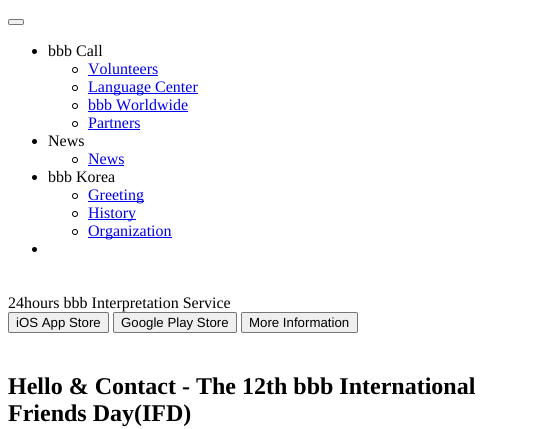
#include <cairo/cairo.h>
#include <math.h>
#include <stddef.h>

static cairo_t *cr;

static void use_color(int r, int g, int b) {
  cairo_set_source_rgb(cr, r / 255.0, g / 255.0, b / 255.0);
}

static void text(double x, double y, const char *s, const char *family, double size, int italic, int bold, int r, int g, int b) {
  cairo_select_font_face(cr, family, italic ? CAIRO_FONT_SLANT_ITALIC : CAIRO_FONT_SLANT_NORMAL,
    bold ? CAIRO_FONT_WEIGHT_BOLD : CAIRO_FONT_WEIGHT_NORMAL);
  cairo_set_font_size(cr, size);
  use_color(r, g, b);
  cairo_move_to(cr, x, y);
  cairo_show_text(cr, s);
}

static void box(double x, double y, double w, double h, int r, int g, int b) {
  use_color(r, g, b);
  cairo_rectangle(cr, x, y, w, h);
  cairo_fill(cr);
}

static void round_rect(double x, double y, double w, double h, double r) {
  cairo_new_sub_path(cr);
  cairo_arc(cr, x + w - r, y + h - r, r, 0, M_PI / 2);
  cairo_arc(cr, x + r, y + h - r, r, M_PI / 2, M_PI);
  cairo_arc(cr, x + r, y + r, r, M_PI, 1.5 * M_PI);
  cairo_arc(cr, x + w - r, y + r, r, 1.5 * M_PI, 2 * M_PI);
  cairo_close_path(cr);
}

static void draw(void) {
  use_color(255, 255, 255);
  cairo_paint(cr);
  use_color(239, 239, 239);
  round_rect(8.5, 19.5, 15, 5, 1.5);
  cairo_fill_preserve(cr);
  use_color(118, 118, 118);
  cairo_set_line_width(cr, 1);
  cairo_stroke(cr);
  use_color(0, 0, 0);
  cairo_arc(cr, 34.5, 51.5, 2.5, 0, 2 * M_PI);
  cairo_fill(cr);
  cairo_arc(cr, 75, 70, 2.5, 0, 2 * M_PI);
  cairo_stroke(cr);
  box(88, 75, 70, 1, 0, 0, 238);
  cairo_arc(cr, 75, 88, 2.5, 0, 2 * M_PI);
  use_color(0, 0, 0);
  cairo_stroke(cr);
  box(88, 93, 110, 1, 0, 0, 238);
  cairo_arc(cr, 75, 106, 2.5, 0, 2 * M_PI);
  use_color(0, 0, 0);
  cairo_stroke(cr);
  box(88, 111, 100, 1, 0, 0, 238);
  cairo_arc(cr, 75, 124, 2.5, 0, 2 * M_PI);
  use_color(0, 0, 0);
  cairo_stroke(cr);
  box(88, 129, 52, 1, 0, 0, 238);
  use_color(0, 0, 0);
  cairo_arc(cr, 34.5, 141.5, 2.5, 0, 2 * M_PI);
  cairo_fill(cr);
  cairo_arc(cr, 75, 160, 2.5, 0, 2 * M_PI);
  cairo_stroke(cr);
  box(88, 165, 36, 1, 0, 0, 238);
  use_color(0, 0, 0);
  cairo_arc(cr, 34.5, 177.5, 2.5, 0, 2 * M_PI);
  cairo_fill(cr);
  cairo_arc(cr, 75, 196, 2.5, 0, 2 * M_PI);
  cairo_stroke(cr);
  box(88, 201, 56, 1, 0, 0, 238);
  cairo_arc(cr, 75, 214, 2.5, 0, 2 * M_PI);
  use_color(0, 0, 0);
  cairo_stroke(cr);
  box(88, 219, 48, 1, 0, 0, 238);
  cairo_arc(cr, 75, 232, 2.5, 0, 2 * M_PI);
  use_color(0, 0, 0);
  cairo_stroke(cr);
  box(88, 237, 84, 1, 0, 0, 238);
  use_color(0, 0, 0);
  cairo_arc(cr, 34.5, 249.5, 2.5, 0, 2 * M_PI);
  cairo_fill(cr);
  use_color(239, 239, 239);
  round_rect(8.5, 312.5, 100, 20, 1.5);
  cairo_fill_preserve(cr);
  use_color(118, 118, 118);
  cairo_stroke(cr);
  use_color(239, 239, 239);
  round_rect(113.5, 312.5, 123, 20, 1.5);
  cairo_fill_preserve(cr);
  use_color(118, 118, 118);
  cairo_stroke(cr);
  use_color(239, 239, 239);
  round_rect(241.5, 312.5, 116, 20, 1.5);
  cairo_fill_preserve(cr);
  use_color(118, 118, 118);
  cairo_stroke(cr);
  text(48, 56, "bbb Call", "Liberation Serif", 16, 0, 0, 0, 0, 0);
  text(88, 74, "Volunteers", "Liberation Serif", 16, 0, 0, 0, 0, 238);
  text(88, 92, "Language Center", "Liberation Serif", 16, 0, 0, 0, 0, 238);
  text(88, 110, "bbb Worldwide", "Liberation Serif", 16, 0, 0, 0, 0, 238);
  text(88, 128, "Partners", "Liberation Serif", 16, 0, 0, 0, 0, 238);
  text(48, 146, "News", "Liberation Serif", 16, 0, 0, 0, 0, 0);
  text(88, 164, "News", "Liberation Serif", 16, 0, 0, 0, 0, 238);
  text(48, 182, "bbb Korea", "Liberation Serif", 16, 0, 0, 0, 0, 0);
  text(88, 200, "Greeting", "Liberation Serif", 16, 0, 0, 0, 0, 238);
  text(88, 218, "History", "Liberation Serif", 16, 0, 0, 0, 0, 238);
  text(88, 236, "Organization", "Liberation Serif", 16, 0, 0, 0, 0, 238);
  text(8, 308, "24hours bbb Interpretation Service", "Liberation Serif", 16, 0, 0, 0, 0, 0);
  text(16, 327, "iOS App Store", "Liberation Sans", 13.25, 0, 0, 0, 0, 0);
  text(121, 327, "Google Play Store", "Liberation Sans", 13.25, 0, 0, 0, 0, 0);
  text(249, 327, "More Information", "Liberation Sans", 13.25, 0, 0, 0, 0, 0);
  text(8, 394, "Hello & Contact - The 12th bbb International", "Liberation Serif", 24, 0, 1, 0, 0, 0);
  text(8, 421, "Friends Day(IFD)", "Liberation Serif", 24, 0, 1, 0, 0, 0);
}

int main(void) {
  cairo_surface_t *surface = cairo_image_surface_create(CAIRO_FORMAT_RGB24, 537, 429);
  cr = cairo_create(surface);
  cairo_font_options_t *options = cairo_font_options_create();
  cairo_font_options_set_hint_metrics(options, CAIRO_HINT_METRICS_OFF);
  cairo_font_options_set_hint_style(options, CAIRO_HINT_STYLE_NONE);
  cairo_set_font_options(cr, options);
  cairo_set_miter_limit(cr, 4);
  draw();
  cairo_surface_write_to_png(surface, "out.png");
  cairo_font_options_destroy(options);
  cairo_destroy(cr);
  cairo_surface_destroy(surface);
  return 0;
}
